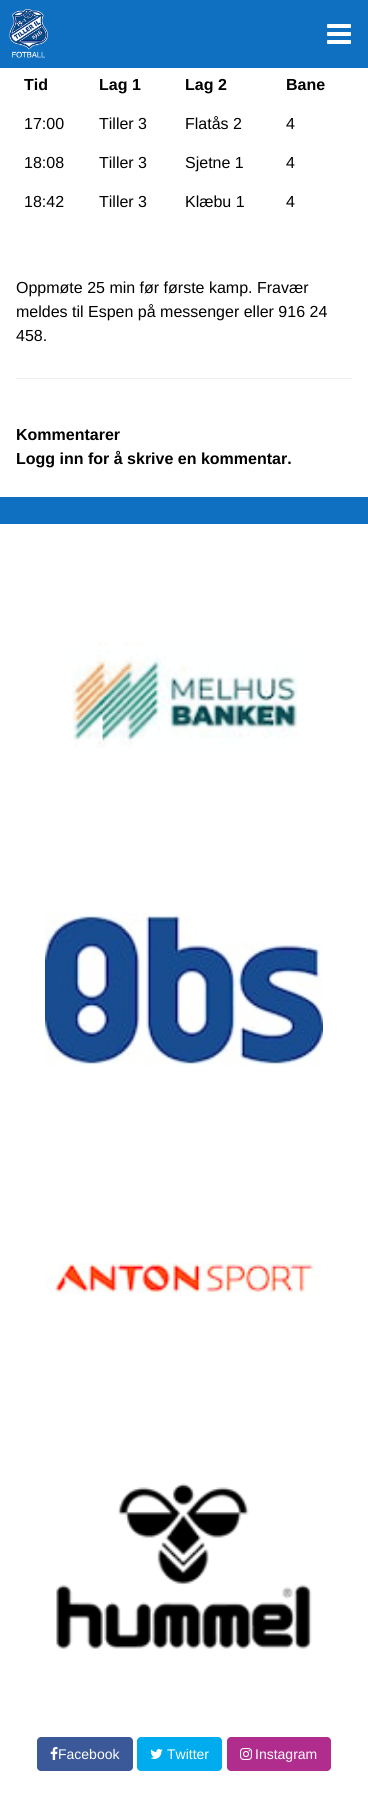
#include <cairo/cairo.h>
#include <math.h>
#include <stddef.h>

static cairo_t *cr;

static void use_color(int r, int g, int b) {
  cairo_set_source_rgb(cr, r / 255.0, g / 255.0, b / 255.0);
}

static void text(double x, double y, const char *s, const char *family, double size, int italic, int bold, int r, int g, int b) {
  cairo_select_font_face(cr, family, italic ? CAIRO_FONT_SLANT_ITALIC : CAIRO_FONT_SLANT_NORMAL,
    bold ? CAIRO_FONT_WEIGHT_BOLD : CAIRO_FONT_WEIGHT_NORMAL);
  cairo_set_font_size(cr, size);
  use_color(r, g, b);
  cairo_move_to(cr, x, y);
  cairo_show_text(cr, s);
}

static void box(double x, double y, double w, double h, int r, int g, int b) {
  use_color(r, g, b);
  cairo_rectangle(cr, x, y, w, h);
  cairo_fill(cr);
}

static void round_rect(double x, double y, double w, double h, double r) {
  cairo_new_sub_path(cr);
  cairo_arc(cr, x + w - r, y + h - r, r, 0, M_PI / 2);
  cairo_arc(cr, x + r, y + h - r, r, M_PI / 2, M_PI);
  cairo_arc(cr, x + r, y + r, r, M_PI, 1.5 * M_PI);
  cairo_arc(cr, x + w - r, y + r, r, 1.5 * M_PI, 2 * M_PI);
  cairo_close_path(cr);
}

static void picture(const char *path, double x, double y, double w, double h) {
  cairo_surface_t *image = cairo_image_surface_create_from_png(path);
  cairo_save(cr);
  cairo_set_source_surface(cr, image, x, y);
  cairo_rectangle(cr, x, y, w, h);
  cairo_fill(cr);
  cairo_restore(cr);
  cairo_surface_destroy(image);
}

static void draw(void) {
  use_color(255, 255, 255);
  cairo_paint(cr);
  box(0, 0, 368, 68, 15, 111, 193);
  picture("img_01.png", 9, 9, 39, 49);
  picture("img_02.png", 327, 24, 24, 20);
  box(16, 378, 336, 1, 238, 238, 238);
  box(0, 497, 368, 27, 15, 111, 193);
  picture("img_03.png", 72, 642, 226, 106);
  picture("img_04.png", 45, 913, 278, 153);
  picture("img_05.png", 45, 1261, 276, 34);
  picture("img_06.png", 56, 1483, 256, 166);
  use_color(59, 89, 152);
  round_rect(37, 1737, 96, 34, 4);
  cairo_fill(cr);
  picture("img_07.png", 50, 1747, 8, 13);
  use_color(0, 172, 237);
  round_rect(137, 1737, 85, 34, 4);
  cairo_fill(cr);
  picture("img_08.png", 150, 1749, 13, 10);
  use_color(176, 45, 141);
  round_rect(227, 1737, 104, 34, 4);
  cairo_fill(cr);
  picture("img_09.png", 240, 1748, 12, 12);
  text(24, 90, "Tid", "Liberation Sans", 16, 0, 1, 0, 0, 0);
  text(99, 90, "Lag 1", "Liberation Sans", 16, 0, 1, 0, 0, 0);
  text(185, 90, "Lag 2", "Liberation Sans", 16, 0, 1, 0, 0, 0);
  text(286, 90, "Bane", "Liberation Sans", 16, 0, 1, 0, 0, 0);
  text(24, 129, "17:00", "Liberation Sans", 16, 0, 0, 0, 0, 0);
  text(99, 129, "Tiller 3", "Liberation Sans", 16, 0, 0, 0, 0, 0);
  text(185, 129, "Flatås 2", "Liberation Sans", 16, 0, 0, 0, 0, 0);
  text(286, 129, "4", "Liberation Sans", 16, 0, 0, 0, 0, 0);
  text(24, 168, "18:08", "Liberation Sans", 16, 0, 0, 0, 0, 0);
  text(99, 168, "Tiller 3", "Liberation Sans", 16, 0, 0, 0, 0, 0);
  text(185, 168, "Sjetne 1", "Liberation Sans", 16, 0, 0, 0, 0, 0);
  text(286, 168, "4", "Liberation Sans", 16, 0, 0, 0, 0, 0);
  text(24, 207, "18:42", "Liberation Sans", 16, 0, 0, 0, 0, 0);
  text(99, 207, "Tiller 3", "Liberation Sans", 16, 0, 0, 0, 0, 0);
  text(185, 207, "Klæbu 1", "Liberation Sans", 16, 0, 0, 0, 0, 0);
  text(286, 207, "4", "Liberation Sans", 16, 0, 0, 0, 0, 0);
  text(16, 293, "Oppmøte 25 min før første kamp. Fravær", "Liberation Sans", 16, 0, 0, 0, 0, 0);
  text(16, 317, "meldes til Espen på messenger eller 916 24", "Liberation Sans", 16, 0, 0, 0, 0, 0);
  text(16, 341, "458.", "Liberation Sans", 16, 0, 0, 0, 0, 0);
  text(16, 440, "Kommentarer", "Liberation Sans", 16, 0, 1, 0, 0, 0);
  text(16, 464, "Logg inn for å skrive en kommentar.", "Liberation Sans", 16, 0, 1, 0, 0, 0);
  text(58, 1759, "Facebook", "Liberation Sans", 14, 0, 0, 255, 255, 255);
  text(167, 1759, "Twitter", "Liberation Sans", 14, 0, 0, 255, 255, 255);
  text(255, 1759, "Instagram", "Liberation Sans", 14, 0, 0, 255, 255, 255);
}

int main(void) {
  cairo_surface_t *surface = cairo_image_surface_create(CAIRO_FORMAT_RGB24, 368, 1814);
  cr = cairo_create(surface);
  cairo_font_options_t *options = cairo_font_options_create();
  cairo_font_options_set_hint_metrics(options, CAIRO_HINT_METRICS_OFF);
  cairo_font_options_set_hint_style(options, CAIRO_HINT_STYLE_NONE);
  cairo_set_font_options(cr, options);
  cairo_set_miter_limit(cr, 4);
  draw();
  cairo_surface_write_to_png(surface, "out.png");
  cairo_font_options_destroy(options);
  cairo_destroy(cr);
  cairo_surface_destroy(surface);
  return 0;
}
